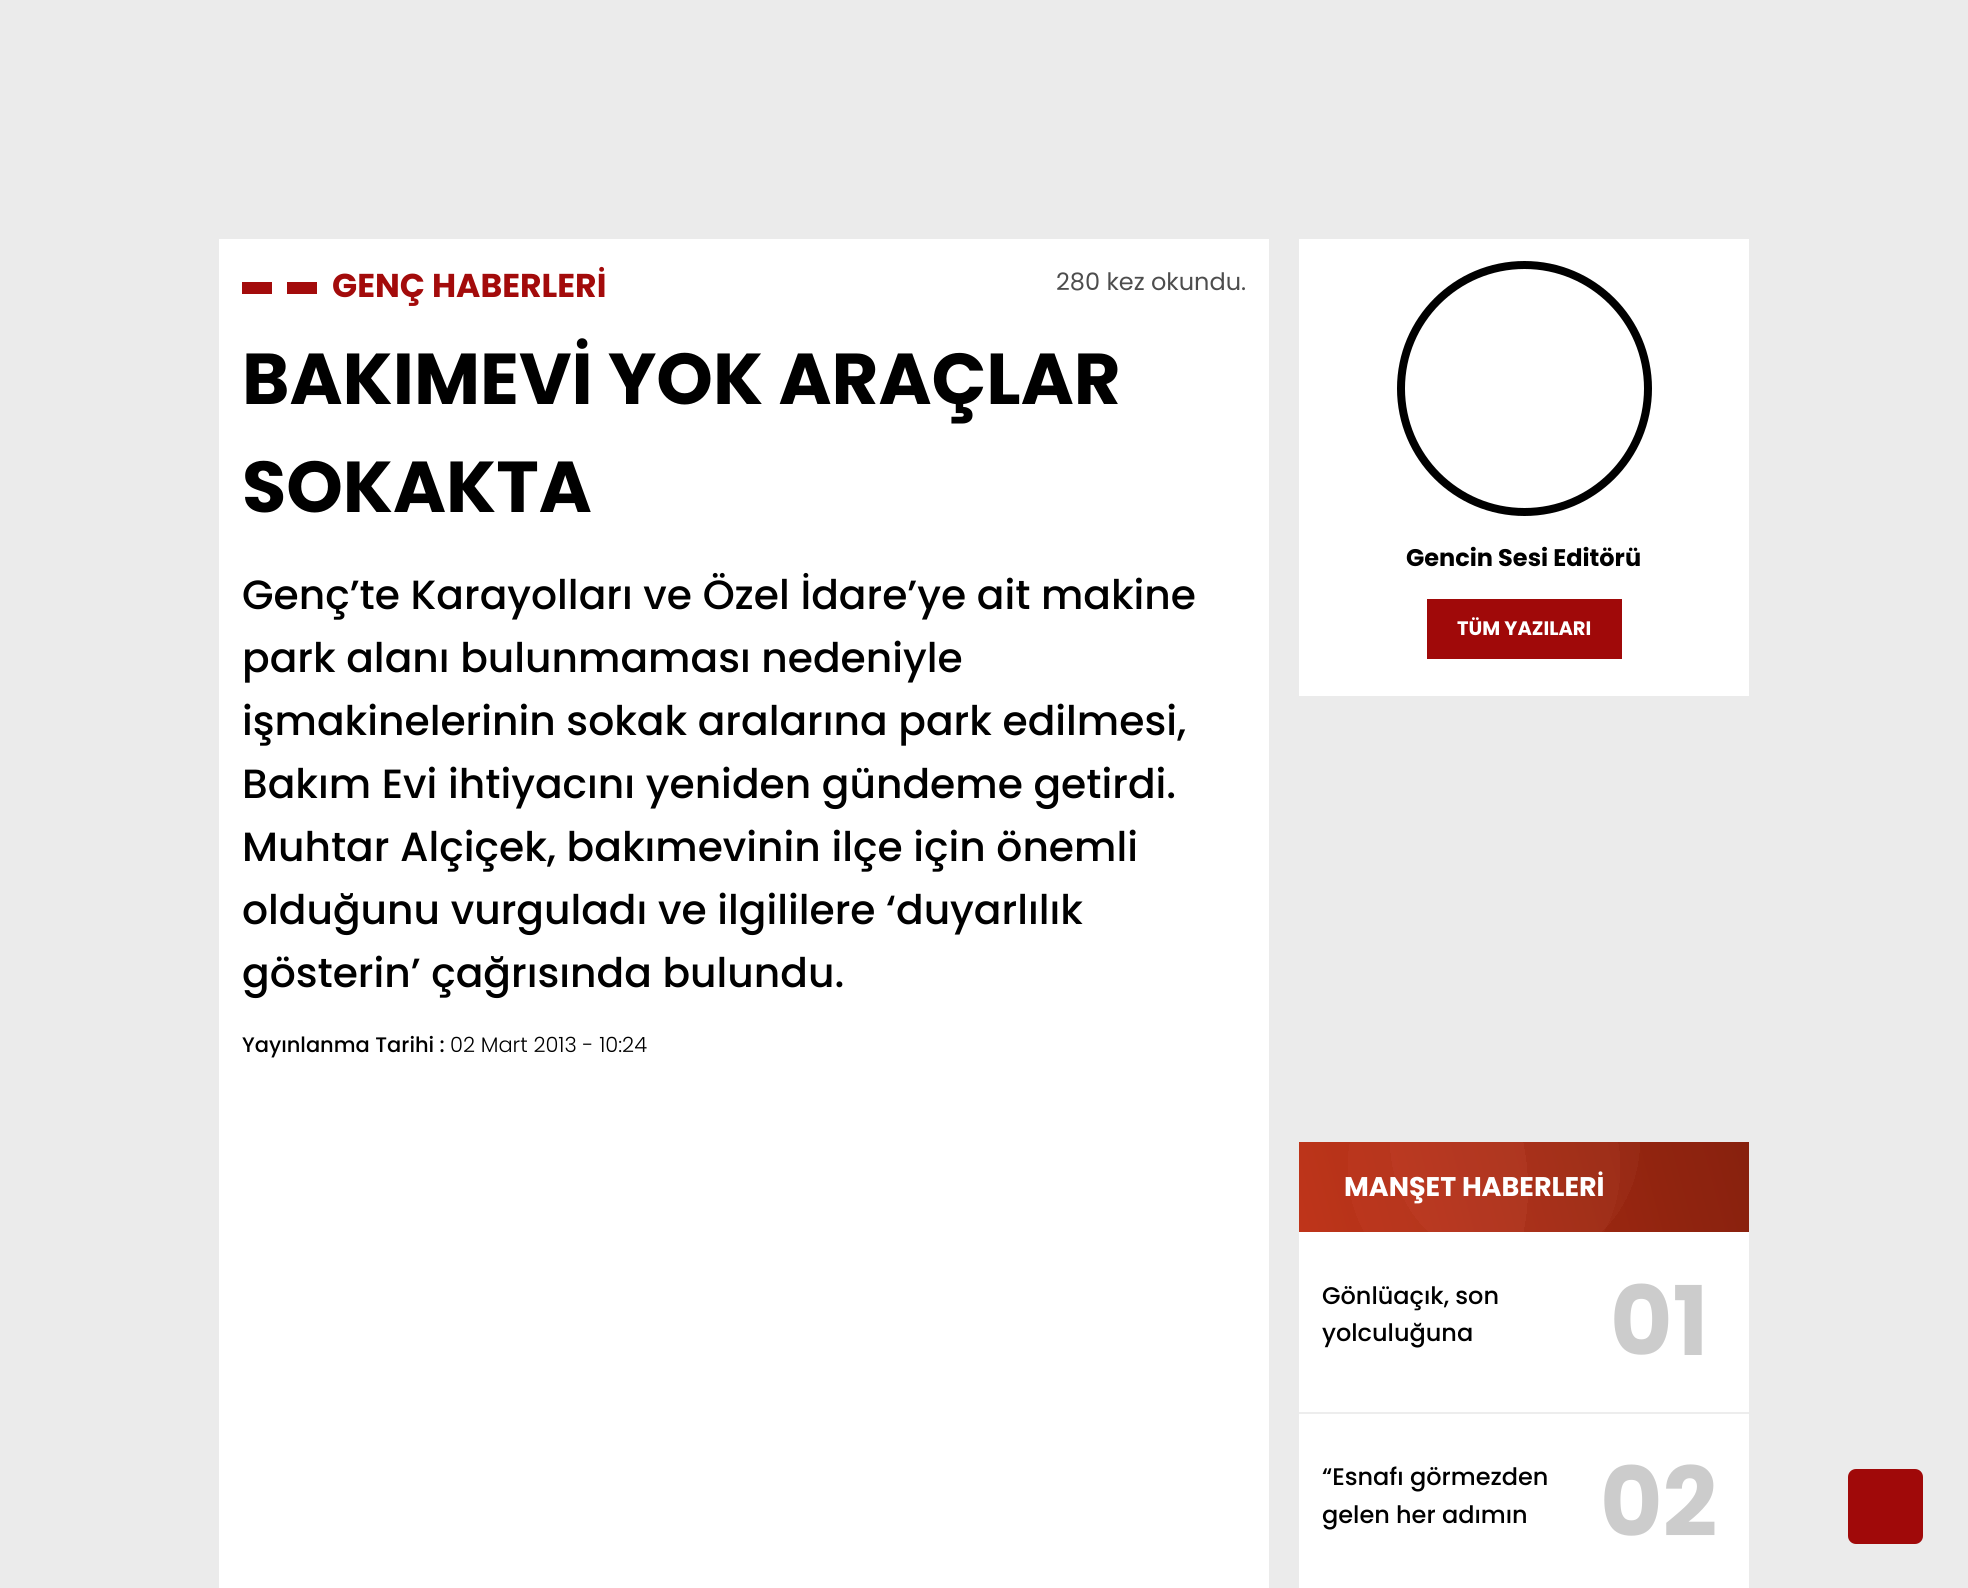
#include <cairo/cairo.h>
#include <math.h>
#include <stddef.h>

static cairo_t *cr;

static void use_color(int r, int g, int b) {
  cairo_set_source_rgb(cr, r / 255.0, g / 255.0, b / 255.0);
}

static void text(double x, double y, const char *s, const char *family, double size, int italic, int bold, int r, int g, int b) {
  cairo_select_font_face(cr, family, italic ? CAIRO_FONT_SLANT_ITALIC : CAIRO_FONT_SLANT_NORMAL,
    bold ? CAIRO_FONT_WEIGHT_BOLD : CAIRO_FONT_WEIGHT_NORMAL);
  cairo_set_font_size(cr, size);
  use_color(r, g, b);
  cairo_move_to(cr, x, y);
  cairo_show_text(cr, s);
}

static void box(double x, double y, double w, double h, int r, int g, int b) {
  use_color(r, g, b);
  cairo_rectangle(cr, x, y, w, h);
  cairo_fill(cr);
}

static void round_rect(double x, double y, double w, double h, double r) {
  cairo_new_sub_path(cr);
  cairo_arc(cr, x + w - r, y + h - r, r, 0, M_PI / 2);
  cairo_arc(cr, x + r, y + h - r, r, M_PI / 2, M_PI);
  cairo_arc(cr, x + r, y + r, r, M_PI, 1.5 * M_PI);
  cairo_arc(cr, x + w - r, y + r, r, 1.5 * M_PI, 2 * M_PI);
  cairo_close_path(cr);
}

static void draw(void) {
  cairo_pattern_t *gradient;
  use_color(235, 235, 235);
  cairo_paint(cr);
  box(219, 239, 1050, 1349, 255, 255, 255);
  box(242, 282, 30, 12, 163, 11, 11);
  box(287, 282, 30, 12, 163, 11, 11);
  box(1299, 239, 450, 457, 255, 255, 255);
  cairo_arc(cr, 1524.5, 388.5, 123.5, 0, 2 * M_PI);
  use_color(0, 0, 0);
  cairo_set_line_width(cr, 8);
  cairo_stroke(cr);
  box(1427, 599, 195, 60, 160, 9, 9);
  box(1299, 1232, 450, 356, 255, 255, 255);
  gradient = cairo_pattern_create_linear(1745, 1127, 1303, 1246);
  cairo_pattern_add_color_stop_rgba(gradient, 0, 0.616, 0.149, 0.063, 1);
  cairo_pattern_add_color_stop_rgba(gradient, 1, 0.843, 0.208, 0.086, 1);
  cairo_set_source(cr, gradient);
  cairo_pattern_destroy(gradient);
  cairo_rectangle(cr, 1299, 1142, 450, 90);
  cairo_fill(cr);
  gradient = cairo_pattern_create_radial(1515, 1142, 0, 1515, 1142, 250);
  cairo_pattern_add_color_stop_rgba(gradient, 0, 0.365, 0.365, 0.365, 0.05);
  cairo_pattern_add_color_stop_rgba(gradient, 0.5, 0.365, 0.365, 0.365, 0.05);
  cairo_pattern_add_color_stop_rgba(gradient, 0.5, 0.027, 0.027, 0.027, 0.05);
  cairo_pattern_add_color_stop_rgba(gradient, 1, 0.027, 0.027, 0.027, 0.05);
  cairo_set_source(cr, gradient);
  cairo_pattern_destroy(gradient);
  cairo_rectangle(cr, 1299, 1142, 450, 90);
  cairo_fill(cr);
  gradient = cairo_pattern_create_radial(1484, 1167, 0, 1484, 1167, 273);
  cairo_pattern_add_color_stop_rgba(gradient, 0, 0.318, 0.318, 0.318, 0.05);
  cairo_pattern_add_color_stop_rgba(gradient, 0.5, 0.318, 0.318, 0.318, 0.05);
  cairo_pattern_add_color_stop_rgba(gradient, 0.5, 0.027, 0.027, 0.027, 0.05);
  cairo_pattern_add_color_stop_rgba(gradient, 1, 0.027, 0.027, 0.027, 0.05);
  cairo_set_source(cr, gradient);
  cairo_pattern_destroy(gradient);
  cairo_rectangle(cr, 1299, 1142, 450, 90);
  cairo_fill(cr);
  gradient = cairo_pattern_create_radial(1304, 1188, 0, 1304, 1188, 448);
  cairo_pattern_add_color_stop_rgba(gradient, 0, 0.545, 0.545, 0.545, 0.05);
  cairo_pattern_add_color_stop_rgba(gradient, 0.5, 0.545, 0.545, 0.545, 0.05);
  cairo_pattern_add_color_stop_rgba(gradient, 0.5, 0.082, 0.082, 0.082, 0.05);
  cairo_pattern_add_color_stop_rgba(gradient, 1, 0.082, 0.082, 0.082, 0.05);
  cairo_set_source(cr, gradient);
  cairo_pattern_destroy(gradient);
  cairo_rectangle(cr, 1299, 1142, 450, 90);
  cairo_fill(cr);
  box(1299, 1412, 450, 2, 237, 237, 237);
  use_color(160, 9, 9);
  round_rect(1848, 1469, 75, 75, 8);
  cairo_fill(cr);
  text(332, 297, "GENÇ HABERLERİ", "Poppins", 33, 0, 1, 163, 11, 11);
  text(1056, 290, "280 kez okundu.", "Poppins", 24, 0, 0, 77, 77, 77);
  text(242, 404, "BAKIMEVİ YOK ARAÇLAR", "Poppins", 72, 0, 1, 0, 0, 0);
  text(242, 512, "SOKAKTA", "Poppins", 72, 0, 1, 0, 0, 0);
  text(242, 609, "Genç’te Karayolları ve Özel İdare’ye ait makine", "Poppins Medium", 40.8, 0, 0, 0, 0, 0);
  text(242, 672, "park alanı bulunmaması nedeniyle", "Poppins Medium", 40.8, 0, 0, 0, 0, 0);
  text(242, 735, "işmakinelerinin sokak aralarına park edilmesi,", "Poppins Medium", 40.8, 0, 0, 0, 0, 0);
  text(242, 798, "Bakım Evi ihtiyacını yeniden gündeme getirdi.", "Poppins Medium", 40.8, 0, 0, 0, 0, 0);
  text(242, 861, "Muhtar Alçiçek, bakımevinin ilçe için önemli", "Poppins Medium", 40.8, 0, 0, 0, 0, 0);
  text(242, 924, "olduğunu vurguladı ve ilgililere ‘duyarlılık", "Poppins Medium", 40.8, 0, 0, 0, 0, 0);
  text(242, 987, "gösterin’ çağrısında bulundu.", "Poppins Medium", 40.8, 0, 0, 0, 0, 0);
  text(242, 1052, "Yayınlanma Tarihi :", "Poppins Medium", 21, 0, 0, 0, 0, 0);
  text(450, 1052, "02 Mart 2013 - 10:24", "Poppins Light", 21, 0, 0, 0, 0, 0);
  text(1406, 566, "Gencin Sesi Editörü", "Poppins", 24, 0, 1, 0, 0, 0);
  text(1457, 635, "TÜM YAZILARI", "Poppins", 19.5, 0, 1, 255, 255, 255);
  text(1344, 1196, "MANŞET HABERLERİ", "Poppins", 27, 0, 1, 255, 255, 255);
  text(1322, 1304, "Gönlüaçık, son", "Poppins Medium", 24, 0, 0, 0, 0, 0);
  text(1322, 1341, "yolculuğuna", "Poppins Medium", 24, 0, 0, 0, 0, 0);
  text(1610, 1355, "01", "Poppins", 96, 0, 1, 204, 204, 204);
  text(1322, 1485, "“Esnafı görmezden", "Poppins Medium", 24, 0, 0, 0, 0, 0);
  text(1322, 1523, "gelen her adımın", "Poppins Medium", 24, 0, 0, 0, 0, 0);
  text(1600, 1536, "02", "Poppins", 96, 0, 1, 204, 204, 204);
}

int main(void) {
  cairo_surface_t *surface = cairo_image_surface_create(CAIRO_FORMAT_RGB24, 1968, 1588);
  cr = cairo_create(surface);
  cairo_font_options_t *options = cairo_font_options_create();
  cairo_font_options_set_hint_metrics(options, CAIRO_HINT_METRICS_OFF);
  cairo_font_options_set_hint_style(options, CAIRO_HINT_STYLE_NONE);
  cairo_set_font_options(cr, options);
  cairo_set_miter_limit(cr, 4);
  draw();
  cairo_surface_write_to_png(surface, "out.png");
  cairo_font_options_destroy(options);
  cairo_destroy(cr);
  cairo_surface_destroy(surface);
  return 0;
}
